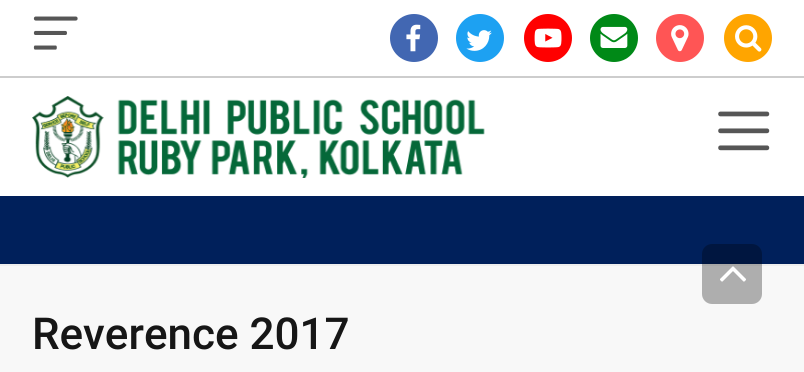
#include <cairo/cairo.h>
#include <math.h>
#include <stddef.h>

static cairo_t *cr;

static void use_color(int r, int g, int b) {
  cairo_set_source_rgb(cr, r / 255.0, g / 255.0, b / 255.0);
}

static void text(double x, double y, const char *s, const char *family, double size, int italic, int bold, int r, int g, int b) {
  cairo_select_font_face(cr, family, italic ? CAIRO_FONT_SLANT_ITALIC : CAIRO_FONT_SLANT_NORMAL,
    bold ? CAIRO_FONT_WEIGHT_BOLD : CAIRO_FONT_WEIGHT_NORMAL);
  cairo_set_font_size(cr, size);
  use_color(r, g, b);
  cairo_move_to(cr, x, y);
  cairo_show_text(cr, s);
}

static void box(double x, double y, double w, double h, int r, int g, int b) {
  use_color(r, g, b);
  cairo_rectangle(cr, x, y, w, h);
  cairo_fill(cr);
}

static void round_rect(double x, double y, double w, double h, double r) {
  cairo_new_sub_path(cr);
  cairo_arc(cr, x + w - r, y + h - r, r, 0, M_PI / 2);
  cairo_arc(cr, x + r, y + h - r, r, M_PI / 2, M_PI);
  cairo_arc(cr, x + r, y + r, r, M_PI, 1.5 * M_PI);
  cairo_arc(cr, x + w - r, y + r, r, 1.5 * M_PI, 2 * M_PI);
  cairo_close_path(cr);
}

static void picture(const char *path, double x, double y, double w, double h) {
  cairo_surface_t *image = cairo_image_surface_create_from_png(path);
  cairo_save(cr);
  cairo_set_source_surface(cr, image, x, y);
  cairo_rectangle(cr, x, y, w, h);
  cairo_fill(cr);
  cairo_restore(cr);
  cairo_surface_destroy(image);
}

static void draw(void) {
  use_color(255, 255, 255);
  cairo_paint(cr);
  box(0, 76, 804, 2, 205, 205, 205);
  picture("img_01.png", 33, 16, 45, 34);
  use_color(66, 103, 178);
  cairo_arc(cr, 414, 38, 24, 0, 2 * M_PI);
  cairo_fill(cr);
  picture("img_02.png", 406, 24, 15, 28);
  use_color(29, 161, 242);
  cairo_arc(cr, 480, 38, 24, 0, 2 * M_PI);
  cairo_fill(cr);
  picture("img_03.png", 466, 30, 26, 21);
  use_color(255, 0, 0);
  cairo_arc(cr, 548, 38, 24, 0, 2 * M_PI);
  cairo_fill(cr);
  picture("img_04.png", 534, 28, 28, 20);
  use_color(0, 137, 23);
  cairo_arc(cr, 614, 38, 24, 0, 2 * M_PI);
  cairo_fill(cr);
  picture("img_05.png", 600, 26, 28, 22);
  use_color(255, 85, 85);
  cairo_arc(cr, 680, 38, 24, 0, 2 * M_PI);
  cairo_fill(cr);
  picture("img_06.png", 671, 25, 18, 27);
  use_color(255, 165, 0);
  cairo_arc(cr, 748, 38, 24, 0, 2 * M_PI);
  cairo_fill(cr);
  picture("img_07.png", 735, 25, 27, 27);
  picture("img_08.png", 32, 96, 453, 82);
  picture("img_09.png", 718, 111, 52, 40);
  box(0, 196, 804, 68, 0, 32, 91);
  box(0, 266, 804, 106, 248, 248, 248);
  box(0, 264, 804, 2, 238, 238, 238);
  cairo_set_source_rgba(cr, 0, 0, 0, 0.3);
  round_rect(702, 244, 60, 60, 10);
  cairo_fill(cr);
  picture("img_10.png", 720, 266, 26, 16);
  text(32, 349, "Reverence 2017", "Roboto Medium", 44, 0, 0, 22, 22, 22);
}

int main(void) {
  cairo_surface_t *surface = cairo_image_surface_create(CAIRO_FORMAT_RGB24, 804, 372);
  cr = cairo_create(surface);
  cairo_font_options_t *options = cairo_font_options_create();
  cairo_font_options_set_hint_metrics(options, CAIRO_HINT_METRICS_OFF);
  cairo_font_options_set_hint_style(options, CAIRO_HINT_STYLE_NONE);
  cairo_set_font_options(cr, options);
  cairo_set_miter_limit(cr, 4);
  draw();
  cairo_surface_write_to_png(surface, "out.png");
  cairo_font_options_destroy(options);
  cairo_destroy(cr);
  cairo_surface_destroy(surface);
  return 0;
}
